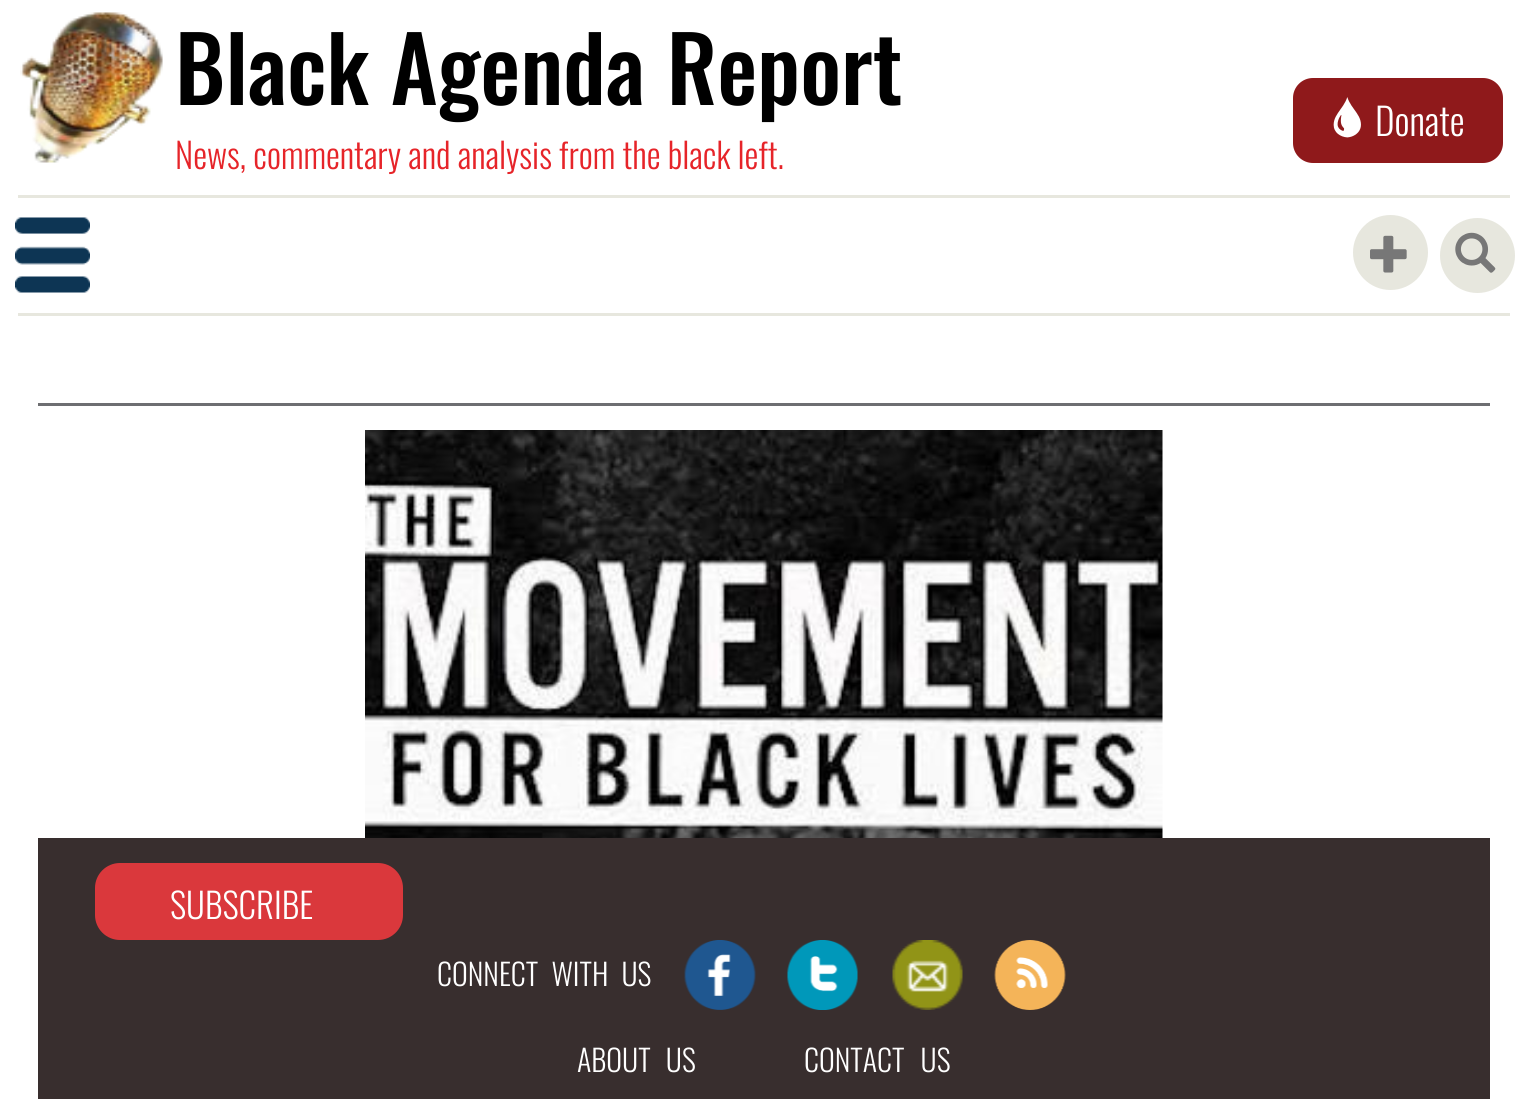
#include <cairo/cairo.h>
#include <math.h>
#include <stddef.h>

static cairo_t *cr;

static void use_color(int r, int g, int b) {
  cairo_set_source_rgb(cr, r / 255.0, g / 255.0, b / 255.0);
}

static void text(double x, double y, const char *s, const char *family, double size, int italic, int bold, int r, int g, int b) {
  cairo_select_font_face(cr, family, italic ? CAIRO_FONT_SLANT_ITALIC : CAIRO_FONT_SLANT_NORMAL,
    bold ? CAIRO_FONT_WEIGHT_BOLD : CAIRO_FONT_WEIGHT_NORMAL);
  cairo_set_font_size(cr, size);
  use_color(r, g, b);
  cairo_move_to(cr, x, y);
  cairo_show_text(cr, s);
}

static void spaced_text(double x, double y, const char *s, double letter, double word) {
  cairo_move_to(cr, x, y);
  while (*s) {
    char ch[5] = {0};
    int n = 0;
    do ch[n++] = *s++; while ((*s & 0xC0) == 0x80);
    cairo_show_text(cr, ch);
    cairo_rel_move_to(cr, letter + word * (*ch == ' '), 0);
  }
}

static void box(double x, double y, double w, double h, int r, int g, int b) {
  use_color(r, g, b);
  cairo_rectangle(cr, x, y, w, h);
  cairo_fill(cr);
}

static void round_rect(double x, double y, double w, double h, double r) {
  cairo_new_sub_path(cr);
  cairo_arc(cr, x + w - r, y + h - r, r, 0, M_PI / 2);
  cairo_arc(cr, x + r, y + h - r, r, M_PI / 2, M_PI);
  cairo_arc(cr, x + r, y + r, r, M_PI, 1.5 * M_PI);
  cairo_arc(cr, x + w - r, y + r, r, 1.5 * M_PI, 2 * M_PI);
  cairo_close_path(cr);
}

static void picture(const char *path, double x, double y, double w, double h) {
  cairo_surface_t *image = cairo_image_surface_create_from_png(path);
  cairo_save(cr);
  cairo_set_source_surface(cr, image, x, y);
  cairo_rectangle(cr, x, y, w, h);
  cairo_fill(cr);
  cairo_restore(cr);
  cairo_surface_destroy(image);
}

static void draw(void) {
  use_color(255, 255, 255);
  cairo_paint(cr);
  picture("img_01.png", 20, 12, 143, 151);
  use_color(143, 25, 27);
  round_rect(1293, 78, 210, 85, 20);
  cairo_fill(cr);
  picture("img_02.png", 1333, 97, 28, 41);
  box(18, 195, 1492, 3, 231, 231, 222);
  picture("img_03.png", 15, 217, 75, 76);
  cairo_arc(cr, 1390.5, 252.5, 37.5, 0, 2 * M_PI);
  cairo_fill(cr);
  picture("img_04.png", 1370, 235, 37, 38);
  cairo_arc(cr, 1477.5, 255.5, 37.5, 0, 2 * M_PI);
  cairo_fill(cr);
  picture("img_05.png", 1455, 232, 41, 41);
  box(18, 313, 1492, 3, 231, 231, 222);
  box(38, 403, 1452, 3, 109, 110, 113);
  picture("img_06.png", 365, 430, 798, 408);
  box(38, 838, 1452, 261, 56, 46, 46);
  use_color(218, 56, 60);
  round_rect(95, 863, 308, 77, 25);
  cairo_fill(cr);
  picture("img_07.png", 684, 940, 72, 70);
  picture("img_08.png", 787, 940, 71, 70);
  picture("img_09.png", 892, 940, 71, 70);
  picture("img_10.png", 994, 940, 72, 70);
  text(175, 105, "Black Agenda Report", "Oswald Medium", 90, 0, 0, 0, 0, 0);
  text(175, 169, "News, commentary and analysis from the black left.", "Oswald Light", 35, 0, 0, 230, 36, 41);
  text(1375, 136, "Donate", "Oswald Light", 37.5, 0, 0, 255, 255, 255);
  text(170, 919, "SUBSCRIBE", "Oswald Light", 35, 0, 0, 255, 255, 255);
  cairo_set_font_size(cr, 30);
  spaced_text(437, 986, "CONNECT WITH US", 0, 7);
  spaced_text(577, 1072, "ABOUT US", 0, 9);
  spaced_text(804, 1072, "CONTACT US", 0, 10);
}

int main(void) {
  cairo_surface_t *surface = cairo_image_surface_create(CAIRO_FORMAT_RGB24, 1527, 1099);
  cr = cairo_create(surface);
  cairo_font_options_t *options = cairo_font_options_create();
  cairo_font_options_set_hint_metrics(options, CAIRO_HINT_METRICS_OFF);
  cairo_font_options_set_hint_style(options, CAIRO_HINT_STYLE_NONE);
  cairo_set_font_options(cr, options);
  cairo_set_miter_limit(cr, 4);
  draw();
  cairo_surface_write_to_png(surface, "out.png");
  cairo_font_options_destroy(options);
  cairo_destroy(cr);
  cairo_surface_destroy(surface);
  return 0;
}
